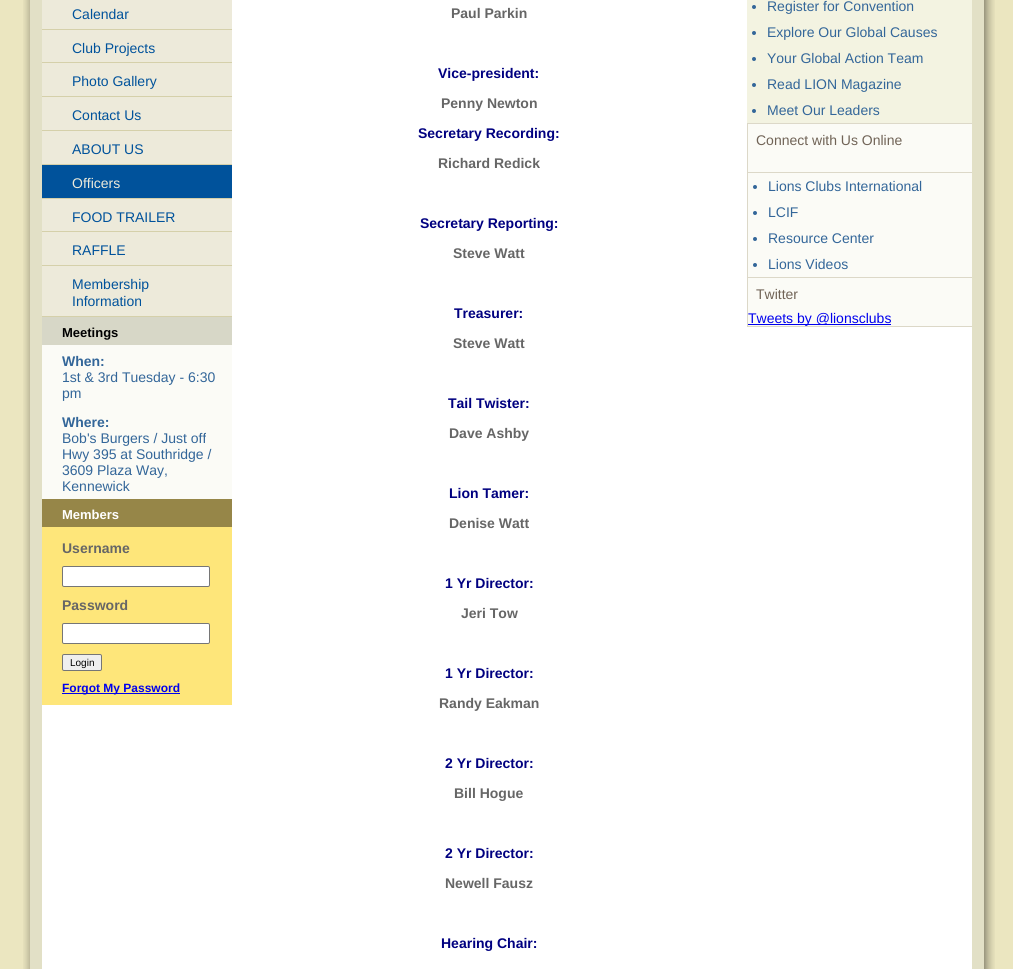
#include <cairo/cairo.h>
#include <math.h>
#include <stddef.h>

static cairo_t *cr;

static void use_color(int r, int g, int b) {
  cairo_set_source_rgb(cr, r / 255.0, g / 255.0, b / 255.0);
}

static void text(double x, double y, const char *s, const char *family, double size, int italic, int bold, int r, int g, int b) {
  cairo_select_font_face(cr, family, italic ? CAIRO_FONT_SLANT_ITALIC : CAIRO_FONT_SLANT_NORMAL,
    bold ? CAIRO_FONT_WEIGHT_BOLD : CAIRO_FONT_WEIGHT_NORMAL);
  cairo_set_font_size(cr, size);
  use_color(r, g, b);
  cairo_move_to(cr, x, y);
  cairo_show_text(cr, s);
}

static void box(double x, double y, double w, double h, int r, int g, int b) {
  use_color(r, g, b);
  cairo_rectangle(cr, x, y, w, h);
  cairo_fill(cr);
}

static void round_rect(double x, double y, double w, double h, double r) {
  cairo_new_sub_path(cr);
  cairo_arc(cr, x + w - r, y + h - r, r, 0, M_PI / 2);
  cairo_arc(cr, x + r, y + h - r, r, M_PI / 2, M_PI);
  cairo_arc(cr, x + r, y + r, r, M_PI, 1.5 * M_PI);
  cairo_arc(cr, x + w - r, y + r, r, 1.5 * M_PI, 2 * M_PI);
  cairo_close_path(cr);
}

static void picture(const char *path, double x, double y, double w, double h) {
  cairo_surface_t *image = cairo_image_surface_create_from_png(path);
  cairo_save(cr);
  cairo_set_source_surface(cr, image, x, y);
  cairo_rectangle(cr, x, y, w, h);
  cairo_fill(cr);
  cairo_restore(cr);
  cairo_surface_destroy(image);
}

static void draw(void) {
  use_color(235, 230, 192);
  cairo_paint(cr);
  picture("img_01.png", 23, 0, 7, 969);
  box(30, 0, 954, 969, 226, 224, 198);
  box(42, 0, 930, 969, 255, 255, 255);
  box(42, 29, 190, 1, 213, 208, 170);
  box(42, 0, 190, 29, 237, 234, 218);
  box(42, 62, 190, 1, 213, 208, 170);
  box(42, 30, 190, 32, 237, 234, 218);
  box(42, 96, 190, 1, 213, 208, 170);
  box(42, 63, 190, 33, 237, 234, 218);
  box(42, 130, 190, 1, 213, 208, 170);
  box(42, 97, 190, 33, 237, 234, 218);
  box(42, 164, 190, 1, 213, 208, 170);
  box(42, 131, 190, 33, 237, 234, 218);
  box(42, 198, 190, 1, 213, 208, 170);
  box(42, 165, 190, 33, 0, 82, 155);
  box(42, 231, 190, 1, 213, 208, 170);
  box(42, 199, 190, 32, 237, 234, 218);
  box(42, 265, 190, 1, 213, 208, 170);
  box(42, 232, 190, 33, 237, 234, 218);
  box(42, 316, 190, 1, 213, 208, 170);
  box(42, 266, 190, 50, 237, 234, 218);
  box(42, 345, 190, 154, 251, 251, 246);
  box(42, 317, 190, 28, 215, 215, 199);
  box(42, 527, 190, 178, 254, 230, 122);
  box(42, 499, 190, 28, 150, 134, 72);
  use_color(255, 255, 255);
  round_rect(62.5, 566.5, 147, 20, 1.5);
  cairo_fill_preserve(cr);
  use_color(118, 118, 118);
  cairo_set_line_width(cr, 1);
  cairo_stroke(cr);
  use_color(255, 255, 255);
  round_rect(62.5, 623.5, 147, 20, 1.5);
  cairo_fill_preserve(cr);
  use_color(118, 118, 118);
  cairo_stroke(cr);
  use_color(239, 239, 239);
  round_rect(62.5, 654.5, 39, 16, 1.5);
  cairo_fill_preserve(cr);
  use_color(118, 118, 118);
  cairo_stroke(cr);
  box(62, 693, 118, 1, 0, 0, 238);
  box(747, 0, 225, 123, 243, 243, 225);
  use_color(51, 102, 153);
  cairo_arc(cr, 754, 7, 2, 0, 2 * M_PI);
  cairo_fill(cr);
  cairo_arc(cr, 754, 33, 2, 0, 2 * M_PI);
  cairo_fill(cr);
  cairo_arc(cr, 754, 59, 2, 0, 2 * M_PI);
  cairo_fill(cr);
  cairo_arc(cr, 754, 85, 2, 0, 2 * M_PI);
  cairo_fill(cr);
  cairo_arc(cr, 754, 111, 2, 0, 2 * M_PI);
  cairo_fill(cr);
  box(747, 123, 225, 1, 220, 216, 200);
  box(748, 124, 224, 48, 251, 251, 246);
  box(747, 124, 1, 48, 220, 216, 200);
  box(747, 172, 225, 1, 220, 216, 200);
  box(748, 173, 224, 104, 251, 251, 246);
  box(747, 173, 1, 104, 220, 216, 200);
  use_color(51, 102, 153);
  cairo_arc(cr, 755, 187, 2, 0, 2 * M_PI);
  cairo_fill(cr);
  cairo_arc(cr, 755, 213, 2, 0, 2 * M_PI);
  cairo_fill(cr);
  cairo_arc(cr, 755, 239, 2, 0, 2 * M_PI);
  cairo_fill(cr);
  cairo_arc(cr, 755, 265, 2, 0, 2 * M_PI);
  cairo_fill(cr);
  box(747, 277, 225, 1, 220, 216, 200);
  box(748, 278, 224, 48, 251, 251, 246);
  box(747, 278, 1, 48, 220, 216, 200);
  box(748, 324, 143, 1, 0, 0, 238);
  box(747, 326, 225, 1, 220, 216, 200);
  picture("img_02.png", 984, 0, 11, 969);
  text(72, 19, "Calendar", "Liberation Sans", 14, 0, 0, 0, 82, 155);
  text(72, 53, "Club Projects", "Liberation Sans", 14, 0, 0, 0, 82, 155);
  text(72, 86, "Photo Gallery", "Liberation Sans", 14, 0, 0, 0, 82, 155);
  text(72, 120, "Contact Us", "Liberation Sans", 14, 0, 0, 0, 82, 155);
  text(72, 154, "ABOUT US", "Liberation Sans", 14, 0, 0, 0, 82, 155);
  text(72, 188, "Officers", "Liberation Sans", 14, 0, 0, 237, 234, 218);
  text(72, 222, "FOOD TRAILER", "Liberation Sans", 14, 0, 0, 0, 82, 155);
  text(72, 255, "RAFFLE", "Liberation Sans", 14, 0, 0, 0, 82, 155);
  text(72, 289, "Membership", "Liberation Sans", 14, 0, 0, 0, 82, 155);
  text(72, 306, "Information", "Liberation Sans", 14, 0, 0, 0, 82, 155);
  text(62, 337, "Meetings", "Liberation Sans", 13, 0, 1, 0, 0, 0);
  text(62, 366, "When:", "Liberation Sans", 14, 0, 1, 51, 102, 153);
  text(62, 382, "1st & 3rd Tuesday - 6:30", "Liberation Sans", 14, 0, 0, 51, 102, 153);
  text(62, 398, "pm", "Liberation Sans", 14, 0, 0, 51, 102, 153);
  text(62, 427, "Where:", "Liberation Sans", 14, 0, 1, 51, 102, 153);
  text(62, 443, "Bob's Burgers / Just off", "Liberation Sans", 14, 0, 0, 51, 102, 153);
  text(62, 459, "Hwy 395 at Southridge /", "Liberation Sans", 14, 0, 0, 51, 102, 153);
  text(62, 475, "3609 Plaza Way,", "Liberation Sans", 14, 0, 0, 51, 102, 153);
  text(62, 491, "Kennewick", "Liberation Sans", 14, 0, 0, 51, 102, 153);
  text(62, 519, "Members", "Liberation Sans", 13, 0, 1, 255, 255, 255);
  text(62, 553, "Username", "Liberation Sans", 14, 0, 1, 102, 102, 102);
  text(62, 610, "Password", "Liberation Sans", 14, 0, 1, 102, 102, 102);
  text(70, 666, "Login", "Liberation Sans", 10, 0, 0, 0, 0, 0);
  text(62, 692, "Forgot My Password", "Liberation Sans", 12, 0, 1, 0, 0, 238);
  text(451, 18, "Paul Parkin", "Liberation Sans", 14, 0, 1, 102, 102, 102);
  text(438, 78, "Vice-president:", "Liberation Sans", 14, 0, 1, 0, 0, 128);
  text(441, 108, "Penny Newton", "Liberation Sans", 14, 0, 1, 102, 102, 102);
  text(418, 138, "Secretary Recording:", "Liberation Sans", 14, 0, 1, 0, 0, 128);
  text(438, 168, "Richard Redick", "Liberation Sans", 14, 0, 1, 102, 102, 102);
  text(420, 228, "Secretary Reporting:", "Liberation Sans", 14, 0, 1, 0, 0, 128);
  text(453, 258, "Steve Watt", "Liberation Sans", 14, 0, 1, 102, 102, 102);
  text(454, 318, "Treasurer:", "Liberation Sans", 14, 0, 1, 0, 0, 128);
  text(453, 348, "Steve Watt", "Liberation Sans", 14, 0, 1, 102, 102, 102);
  text(448, 408, "Tail Twister:", "Liberation Sans", 14, 0, 1, 0, 0, 128);
  text(449, 438, "Dave Ashby", "Liberation Sans", 14, 0, 1, 102, 102, 102);
  text(449, 498, "Lion Tamer:", "Liberation Sans", 14, 0, 1, 0, 0, 128);
  text(449, 528, "Denise Watt", "Liberation Sans", 14, 0, 1, 102, 102, 102);
  text(445, 588, "1 Yr Director:", "Liberation Sans", 14, 0, 1, 0, 0, 128);
  text(461, 618, "Jeri Tow", "Liberation Sans", 14, 0, 1, 102, 102, 102);
  text(445, 678, "1 Yr Director:", "Liberation Sans", 14, 0, 1, 0, 0, 128);
  text(439, 708, "Randy Eakman", "Liberation Sans", 14, 0, 1, 102, 102, 102);
  text(445, 768, "2 Yr Director:", "Liberation Sans", 14, 0, 1, 0, 0, 128);
  text(454, 798, "Bill Hogue", "Liberation Sans", 14, 0, 1, 102, 102, 102);
  text(445, 858, "2 Yr Director:", "Liberation Sans", 14, 0, 1, 0, 0, 128);
  text(445, 888, "Newell Fausz", "Liberation Sans", 14, 0, 1, 102, 102, 102);
  text(441, 948, "Hearing Chair:", "Liberation Sans", 14, 0, 1, 0, 0, 128);
  text(767, 11, "Register for Convention", "Liberation Sans", 14, 0, 0, 51, 102, 153);
  text(767, 37, "Explore Our Global Causes", "Liberation Sans", 14, 0, 0, 51, 102, 153);
  text(767, 63, "Your Global Action Team", "Liberation Sans", 14, 0, 0, 51, 102, 153);
  text(767, 89, "Read LION Magazine", "Liberation Sans", 14, 0, 0, 51, 102, 153);
  text(767, 115, "Meet Our Leaders", "Liberation Sans", 14, 0, 0, 51, 102, 153);
  text(756, 145, "Connect with Us Online", "Liberation Sans", 14, 0, 0, 112, 99, 86);
  text(768, 191, "Lions Clubs International", "Liberation Sans", 14, 0, 0, 51, 102, 153);
  text(768, 217, "LCIF", "Liberation Sans", 14, 0, 0, 51, 102, 153);
  text(768, 243, "Resource Center", "Liberation Sans", 14, 0, 0, 51, 102, 153);
  text(768, 269, "Lions Videos", "Liberation Sans", 14, 0, 0, 51, 102, 153);
  text(756, 299, "Twitter", "Liberation Sans", 14, 0, 0, 112, 99, 86);
  text(748, 323, "Tweets by @lionsclubs", "Liberation Sans", 14, 0, 0, 0, 0, 238);
}

int main(void) {
  cairo_surface_t *surface = cairo_image_surface_create(CAIRO_FORMAT_RGB24, 1013, 969);
  cr = cairo_create(surface);
  cairo_font_options_t *options = cairo_font_options_create();
  cairo_font_options_set_hint_metrics(options, CAIRO_HINT_METRICS_OFF);
  cairo_font_options_set_hint_style(options, CAIRO_HINT_STYLE_NONE);
  cairo_set_font_options(cr, options);
  cairo_set_miter_limit(cr, 4);
  draw();
  cairo_surface_write_to_png(surface, "out.png");
  cairo_font_options_destroy(options);
  cairo_destroy(cr);
  cairo_surface_destroy(surface);
  return 0;
}
